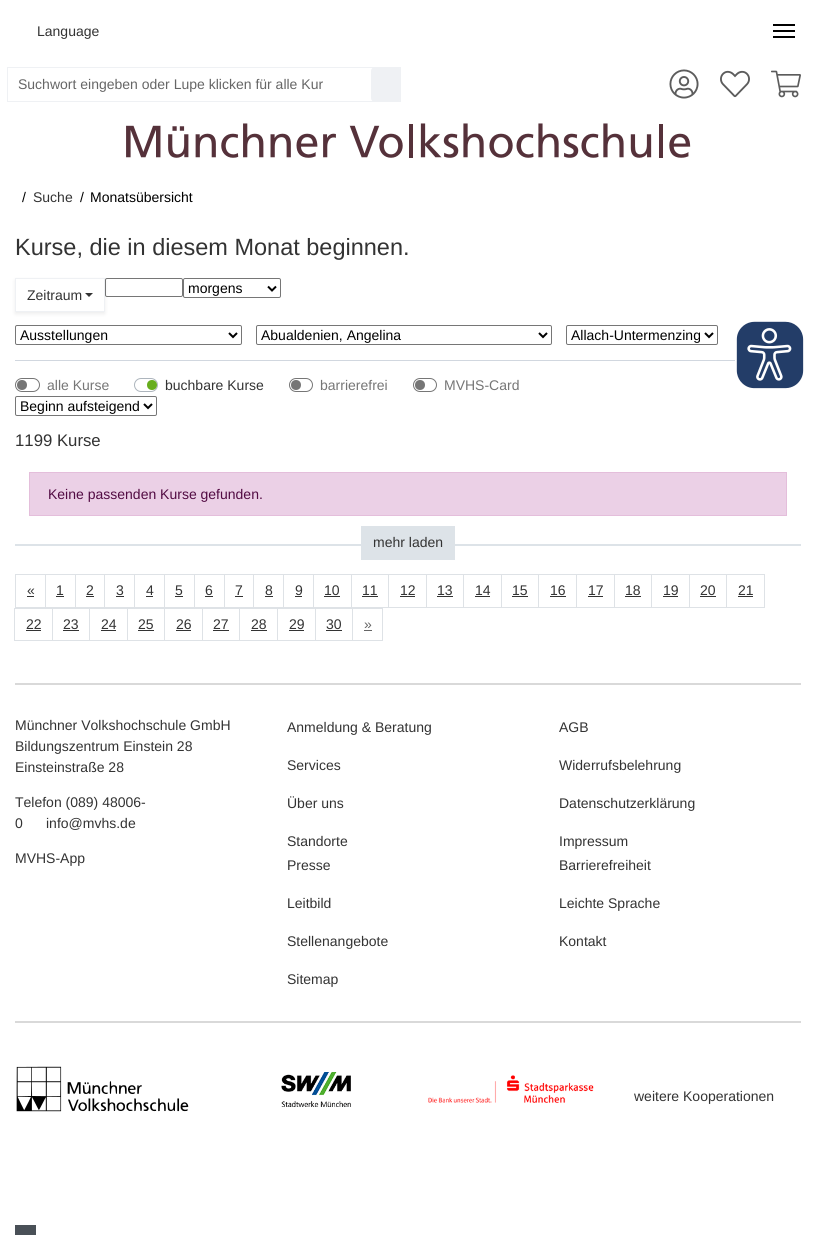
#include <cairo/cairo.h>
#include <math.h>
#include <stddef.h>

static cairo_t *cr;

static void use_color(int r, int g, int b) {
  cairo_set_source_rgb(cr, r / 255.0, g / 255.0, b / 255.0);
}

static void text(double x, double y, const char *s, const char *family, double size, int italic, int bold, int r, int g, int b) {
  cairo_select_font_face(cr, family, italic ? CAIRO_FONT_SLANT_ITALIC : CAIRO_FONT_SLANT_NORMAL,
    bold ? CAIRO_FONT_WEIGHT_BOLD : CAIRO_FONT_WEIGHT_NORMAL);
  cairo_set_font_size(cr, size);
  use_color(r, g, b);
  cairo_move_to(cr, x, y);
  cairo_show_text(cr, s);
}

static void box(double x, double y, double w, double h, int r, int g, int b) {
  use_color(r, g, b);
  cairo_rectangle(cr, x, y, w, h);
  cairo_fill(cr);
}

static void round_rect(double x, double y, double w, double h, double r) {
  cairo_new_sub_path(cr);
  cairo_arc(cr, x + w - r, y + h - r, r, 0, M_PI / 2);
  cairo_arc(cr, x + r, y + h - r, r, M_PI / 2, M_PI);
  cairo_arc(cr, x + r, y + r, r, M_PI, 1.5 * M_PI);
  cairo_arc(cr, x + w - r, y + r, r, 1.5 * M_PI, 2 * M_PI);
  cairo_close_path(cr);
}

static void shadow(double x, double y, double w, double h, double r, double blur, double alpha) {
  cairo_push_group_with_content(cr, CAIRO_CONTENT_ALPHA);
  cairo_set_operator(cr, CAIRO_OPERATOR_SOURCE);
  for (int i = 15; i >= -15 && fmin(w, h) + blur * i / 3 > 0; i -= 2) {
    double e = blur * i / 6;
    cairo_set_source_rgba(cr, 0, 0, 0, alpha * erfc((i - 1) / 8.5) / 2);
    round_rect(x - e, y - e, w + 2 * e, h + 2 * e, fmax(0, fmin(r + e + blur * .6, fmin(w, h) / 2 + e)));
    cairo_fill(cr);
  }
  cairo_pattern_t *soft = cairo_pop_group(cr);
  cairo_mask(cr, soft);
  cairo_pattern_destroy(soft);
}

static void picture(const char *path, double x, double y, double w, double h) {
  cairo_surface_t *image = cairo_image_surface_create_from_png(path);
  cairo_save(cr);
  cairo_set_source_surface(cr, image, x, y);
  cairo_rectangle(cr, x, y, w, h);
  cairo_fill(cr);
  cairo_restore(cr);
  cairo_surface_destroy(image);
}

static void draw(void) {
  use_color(255, 255, 255);
  cairo_paint(cr);
  box(773, 30, 22, 2, 0, 0, 0);
  box(773, 24, 22, 2, 0, 0, 0);
  box(773, 36, 22, 2, 0, 0, 0);
  cairo_rectangle(cr, 7.5, 67.5, 393, 34);
  use_color(239, 241, 244);
  cairo_set_line_width(cr, 1);
  cairo_stroke(cr);
  round_rect(371, 67, 30, 35, 4);
  cairo_fill(cr);
  picture("img_01.png", 669, 69, 30, 30);
  picture("img_02.png", 720, 70, 30, 28);
  picture("img_03.png", 771, 70, 30, 28);
  picture("img_04.png", 126, 123, 565, 35);
  round_rect(105.5, 278.5, 77, 18, 1.5);
  use_color(118, 118, 118);
  cairo_stroke(cr);
  cairo_save(cr);
  cairo_set_fill_rule(cr, CAIRO_FILL_RULE_EVEN_ODD);
  cairo_new_path(cr);
  cairo_move_to(cr, 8, 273);
  cairo_line_to(cr, 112, 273);
  cairo_line_to(cr, 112, 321);
  cairo_line_to(cr, 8, 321);
  cairo_close_path(cr);
  cairo_move_to(cr, 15, 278);
  cairo_line_to(cr, 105, 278);
  cairo_line_to(cr, 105, 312);
  cairo_line_to(cr, 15, 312);
  cairo_close_path(cr);
  cairo_clip(cr);
  use_color(0, 0, 0);
  shadow(15, 280, 90, 34, 0, 2, 0.07);
  cairo_restore(cr);
  cairo_rectangle(cr, 15.5, 278.5, 89, 33);
  use_color(239, 241, 244);
  cairo_stroke(cr);
  use_color(51, 51, 51);
  cairo_new_path(cr);
  cairo_move_to(cr, 85, 293);
  cairo_line_to(cr, 93, 293);
  cairo_line_to(cr, 89, 297);
  cairo_close_path(cr);
  cairo_fill(cr);
  round_rect(183.5, 278.5, 97, 19, 1.5);
  use_color(118, 118, 118);
  cairo_stroke(cr);
  cairo_new_path(cr);
  cairo_move_to(cr, 268, 286.5);
  cairo_line_to(cr, 272, 290.5);
  cairo_line_to(cr, 276, 286.5);
  use_color(0, 0, 0);
  cairo_set_line_width(cr, 2);
  cairo_stroke(cr);
  round_rect(15.5, 325.5, 226, 19, 1.5);
  use_color(118, 118, 118);
  cairo_set_line_width(cr, 1);
  cairo_stroke(cr);
  cairo_new_path(cr);
  cairo_move_to(cr, 229, 333);
  cairo_line_to(cr, 233, 337);
  cairo_line_to(cr, 237, 333);
  use_color(0, 0, 0);
  cairo_set_line_width(cr, 2);
  cairo_stroke(cr);
  round_rect(256.5, 325.5, 295, 19, 1.5);
  use_color(118, 118, 118);
  cairo_set_line_width(cr, 1);
  cairo_stroke(cr);
  cairo_new_path(cr);
  cairo_move_to(cr, 539, 333);
  cairo_line_to(cr, 543, 337);
  cairo_line_to(cr, 547, 333);
  use_color(0, 0, 0);
  cairo_set_line_width(cr, 2);
  cairo_stroke(cr);
  round_rect(566.5, 325.5, 151, 19, 1.5);
  use_color(118, 118, 118);
  cairo_set_line_width(cr, 1);
  cairo_stroke(cr);
  cairo_new_path(cr);
  cairo_move_to(cr, 705, 333);
  cairo_line_to(cr, 709, 337);
  cairo_line_to(cr, 713, 333);
  use_color(0, 0, 0);
  cairo_set_line_width(cr, 2);
  cairo_stroke(cr);
  box(15, 360, 720, 1, 209, 215, 223);
  round_rect(15.5, 378.5, 24, 13, 6.5);
  use_color(118, 118, 118);
  cairo_set_line_width(cr, 1);
  cairo_stroke(cr);
  cairo_arc(cr, 22, 385, 5, 0, 2 * M_PI);
  cairo_fill(cr);
  round_rect(134.5, 378.5, 23, 13, 6.5);
  use_color(173, 181, 189);
  cairo_stroke(cr);
  use_color(103, 173, 29);
  cairo_arc(cr, 152, 385, 5, 0, 2 * M_PI);
  cairo_fill(cr);
  round_rect(289.5, 378.5, 23, 13, 6.5);
  use_color(118, 118, 118);
  cairo_stroke(cr);
  cairo_arc(cr, 296, 385, 5, 0, 2 * M_PI);
  cairo_fill(cr);
  round_rect(413.5, 378.5, 23, 13, 6.5);
  cairo_stroke(cr);
  cairo_arc(cr, 420, 385, 5, 0, 2 * M_PI);
  cairo_fill(cr);
  round_rect(15.5, 396.5, 141, 19, 1.5);
  cairo_stroke(cr);
  cairo_new_path(cr);
  cairo_move_to(cr, 144, 404);
  cairo_line_to(cr, 148, 408);
  cairo_line_to(cr, 152, 404);
  use_color(0, 0, 0);
  cairo_set_line_width(cr, 2);
  cairo_stroke(cr);
  use_color(235, 208, 230);
  cairo_rectangle(cr, 29.5, 472.5, 757, 43);
  cairo_fill_preserve(cr);
  use_color(228, 190, 219);
  cairo_set_line_width(cr, 1);
  cairo_stroke(cr);
  box(15, 544, 786, 2, 221, 227, 232);
  box(361, 526, 94, 34, 221, 227, 232);
  cairo_rectangle(cr, 15.5, 574.5, 30, 33);
  use_color(222, 226, 230);
  cairo_stroke(cr);
  box(27, 596, 7, 1, 51, 51, 51);
  cairo_rectangle(cr, 45.5, 574.5, 30, 33);
  use_color(222, 226, 230);
  cairo_stroke(cr);
  box(56, 596, 8, 1, 51, 51, 51);
  cairo_rectangle(cr, 75.5, 574.5, 29, 33);
  use_color(222, 226, 230);
  cairo_stroke(cr);
  box(86, 596, 8, 1, 51, 51, 51);
  cairo_rectangle(cr, 104.5, 574.5, 30, 33);
  use_color(222, 226, 230);
  cairo_stroke(cr);
  box(116, 596, 8, 1, 51, 51, 51);
  cairo_rectangle(cr, 134.5, 574.5, 30, 33);
  use_color(222, 226, 230);
  cairo_stroke(cr);
  box(146, 596, 7, 1, 51, 51, 51);
  cairo_rectangle(cr, 164.5, 574.5, 30, 33);
  use_color(222, 226, 230);
  cairo_stroke(cr);
  box(175, 596, 8, 1, 51, 51, 51);
  cairo_rectangle(cr, 194.5, 574.5, 30, 33);
  use_color(222, 226, 230);
  cairo_stroke(cr);
  box(205, 596, 8, 1, 51, 51, 51);
  cairo_rectangle(cr, 224.5, 574.5, 29, 33);
  use_color(222, 226, 230);
  cairo_stroke(cr);
  box(235, 596, 8, 1, 51, 51, 51);
  cairo_rectangle(cr, 253.5, 574.5, 30, 33);
  use_color(222, 226, 230);
  cairo_stroke(cr);
  box(265, 596, 8, 1, 51, 51, 51);
  cairo_rectangle(cr, 283.5, 574.5, 30, 33);
  use_color(222, 226, 230);
  cairo_stroke(cr);
  box(295, 596, 7, 1, 51, 51, 51);
  cairo_rectangle(cr, 313.5, 574.5, 38, 33);
  use_color(222, 226, 230);
  cairo_stroke(cr);
  box(324, 596, 16, 1, 51, 51, 51);
  cairo_rectangle(cr, 351.5, 574.5, 37, 33);
  use_color(222, 226, 230);
  cairo_stroke(cr);
  box(362, 596, 16, 1, 51, 51, 51);
  cairo_rectangle(cr, 388.5, 574.5, 38, 33);
  use_color(222, 226, 230);
  cairo_stroke(cr);
  box(400, 596, 15, 1, 51, 51, 51);
  cairo_rectangle(cr, 426.5, 574.5, 37, 33);
  use_color(222, 226, 230);
  cairo_stroke(cr);
  box(437, 596, 16, 1, 51, 51, 51);
  cairo_rectangle(cr, 463.5, 574.5, 38, 33);
  use_color(222, 226, 230);
  cairo_stroke(cr);
  box(475, 596, 15, 1, 51, 51, 51);
  cairo_rectangle(cr, 501.5, 574.5, 37, 33);
  use_color(222, 226, 230);
  cairo_stroke(cr);
  box(512, 596, 16, 1, 51, 51, 51);
  cairo_rectangle(cr, 538.5, 574.5, 38, 33);
  use_color(222, 226, 230);
  cairo_stroke(cr);
  box(550, 596, 16, 1, 51, 51, 51);
  cairo_rectangle(cr, 576.5, 574.5, 38, 33);
  use_color(222, 226, 230);
  cairo_stroke(cr);
  box(588, 596, 15, 1, 51, 51, 51);
  cairo_rectangle(cr, 614.5, 574.5, 37, 33);
  use_color(222, 226, 230);
  cairo_stroke(cr);
  box(625, 596, 16, 1, 51, 51, 51);
  cairo_rectangle(cr, 651.5, 574.5, 38, 33);
  use_color(222, 226, 230);
  cairo_stroke(cr);
  box(663, 596, 15, 1, 51, 51, 51);
  cairo_rectangle(cr, 689.5, 574.5, 37, 33);
  use_color(222, 226, 230);
  cairo_stroke(cr);
  box(700, 596, 16, 1, 51, 51, 51);
  cairo_rectangle(cr, 726.5, 574.5, 38, 33);
  use_color(222, 226, 230);
  cairo_stroke(cr);
  box(738, 596, 15, 1, 51, 51, 51);
  cairo_rectangle(cr, 14.5, 608.5, 38, 32);
  use_color(222, 226, 230);
  cairo_stroke(cr);
  box(26, 630, 15, 1, 51, 51, 51);
  cairo_rectangle(cr, 52.5, 608.5, 37, 32);
  use_color(222, 226, 230);
  cairo_stroke(cr);
  box(63, 630, 16, 1, 51, 51, 51);
  cairo_rectangle(cr, 89.5, 608.5, 38, 32);
  use_color(222, 226, 230);
  cairo_stroke(cr);
  box(101, 630, 15, 1, 51, 51, 51);
  cairo_rectangle(cr, 127.5, 608.5, 37, 32);
  use_color(222, 226, 230);
  cairo_stroke(cr);
  box(138, 630, 16, 1, 51, 51, 51);
  cairo_rectangle(cr, 164.5, 608.5, 38, 32);
  use_color(222, 226, 230);
  cairo_stroke(cr);
  box(176, 630, 15, 1, 51, 51, 51);
  cairo_rectangle(cr, 202.5, 608.5, 37, 32);
  use_color(222, 226, 230);
  cairo_stroke(cr);
  box(213, 630, 16, 1, 51, 51, 51);
  cairo_rectangle(cr, 239.5, 608.5, 38, 32);
  use_color(222, 226, 230);
  cairo_stroke(cr);
  box(251, 630, 16, 1, 51, 51, 51);
  cairo_rectangle(cr, 277.5, 608.5, 38, 32);
  use_color(222, 226, 230);
  cairo_stroke(cr);
  box(289, 630, 15, 1, 51, 51, 51);
  cairo_rectangle(cr, 315.5, 608.5, 37, 32);
  use_color(222, 226, 230);
  cairo_stroke(cr);
  box(326, 630, 16, 1, 51, 51, 51);
  cairo_rectangle(cr, 352.5, 608.5, 30, 32);
  use_color(222, 226, 230);
  cairo_stroke(cr);
  box(364, 630, 8, 1, 102, 102, 102);
  picture("img_05.png", 735, 321, 69, 68);
  box(15, 683, 786, 2, 217, 217, 217);
  box(15, 1021, 786, 2, 217, 217, 217);
  picture("img_06.png", 16, 1066, 173, 46);
  picture("img_07.png", 281, 1072, 70, 35);
  picture("img_08.png", 428, 1075, 166, 28);
  box(15, 1225, 21, 10, 73, 80, 87);
  text(37, 36, "Language", "Liberation Sans", 14, 0, 0, 51, 51, 51);
  text(18, 89, "Suchwort eingeben oder Lupe klicken für alle Kur", "Liberation Sans", 14, 0, 0, 102, 102, 102);
  text(22, 202, "/", "Liberation Sans", 14, 0, 0, 0, 0, 0);
  text(33, 202, "Suche", "Liberation Sans", 14, 0, 0, 51, 51, 51);
  text(80, 202, "/", "Liberation Sans", 14, 0, 0, 0, 0, 0);
  text(90, 202, "Monatsübersicht", "Liberation Sans", 14, 0, 0, 0, 0, 0);
  text(15, 255, "Kurse, die in diesem Monat beginnen.", "Liberation Sans", 23.5, 0, 0, 51, 51, 51);
  text(27, 300, "Zeitraum", "Liberation Sans", 14, 0, 0, 51, 51, 51);
  text(188, 293, "morgens", "Liberation Sans", 14, 0, 0, 0, 0, 0);
  text(20, 340, "Ausstellungen", "Liberation Sans", 14, 0, 0, 0, 0, 0);
  text(261, 340, "Abualdenien, Angelina", "Liberation Sans", 14, 0, 0, 0, 0, 0);
  text(571, 340, "Allach-Untermenzing", "Liberation Sans", 14, 0, 0, 0, 0, 0);
  text(47, 390, "alle Kurse", "Liberation Sans", 14, 0, 0, 118, 118, 118);
  text(165, 390, "buchbare Kurse", "Liberation Sans", 14, 0, 0, 51, 51, 51);
  text(320, 390, "barrierefrei", "Liberation Sans", 14, 0, 0, 118, 118, 118);
  text(444, 390, "MVHS-Card", "Liberation Sans", 14, 0, 0, 118, 118, 118);
  text(20, 411, "Beginn aufsteigend", "Liberation Sans", 14, 0, 0, 0, 0, 0);
  text(15, 446, "1199 Kurse", "Liberation Sans", 16.75, 0, 0, 51, 51, 51);
  text(48, 499, "Keine passenden Kurse gefunden.", "Liberation Sans", 14, 0, 0, 82, 11, 67);
  text(373, 547, "mehr laden", "Liberation Sans", 14, 0, 0, 51, 51, 51);
  text(27, 595, "«", "Liberation Sans", 14, 0, 0, 51, 51, 51);
  text(56, 595, "1", "Liberation Sans", 14, 0, 0, 51, 51, 51);
  text(86, 595, "2", "Liberation Sans", 14, 0, 0, 51, 51, 51);
  text(116, 595, "3", "Liberation Sans", 14, 0, 0, 51, 51, 51);
  text(146, 595, "4", "Liberation Sans", 14, 0, 0, 51, 51, 51);
  text(175, 595, "5", "Liberation Sans", 14, 0, 0, 51, 51, 51);
  text(205, 595, "6", "Liberation Sans", 14, 0, 0, 51, 51, 51);
  text(235, 595, "7", "Liberation Sans", 14, 0, 0, 51, 51, 51);
  text(265, 595, "8", "Liberation Sans", 14, 0, 0, 51, 51, 51);
  text(295, 595, "9", "Liberation Sans", 14, 0, 0, 51, 51, 51);
  text(324, 595, "10", "Liberation Sans", 14, 0, 0, 51, 51, 51);
  text(362, 595, "11", "Liberation Sans", 14, 0, 0, 51, 51, 51);
  text(400, 595, "12", "Liberation Sans", 14, 0, 0, 51, 51, 51);
  text(437, 595, "13", "Liberation Sans", 14, 0, 0, 51, 51, 51);
  text(475, 595, "14", "Liberation Sans", 14, 0, 0, 51, 51, 51);
  text(512, 595, "15", "Liberation Sans", 14, 0, 0, 51, 51, 51);
  text(550, 595, "16", "Liberation Sans", 14, 0, 0, 51, 51, 51);
  text(588, 595, "17", "Liberation Sans", 14, 0, 0, 51, 51, 51);
  text(625, 595, "18", "Liberation Sans", 14, 0, 0, 51, 51, 51);
  text(663, 595, "19", "Liberation Sans", 14, 0, 0, 51, 51, 51);
  text(700, 595, "20", "Liberation Sans", 14, 0, 0, 51, 51, 51);
  text(738, 595, "21", "Liberation Sans", 14, 0, 0, 51, 51, 51);
  text(26, 629, "22", "Liberation Sans", 14, 0, 0, 51, 51, 51);
  text(63, 629, "23", "Liberation Sans", 14, 0, 0, 51, 51, 51);
  text(101, 629, "24", "Liberation Sans", 14, 0, 0, 51, 51, 51);
  text(138, 629, "25", "Liberation Sans", 14, 0, 0, 51, 51, 51);
  text(176, 629, "26", "Liberation Sans", 14, 0, 0, 51, 51, 51);
  text(213, 629, "27", "Liberation Sans", 14, 0, 0, 51, 51, 51);
  text(251, 629, "28", "Liberation Sans", 14, 0, 0, 51, 51, 51);
  text(289, 629, "29", "Liberation Sans", 14, 0, 0, 51, 51, 51);
  text(326, 629, "30", "Liberation Sans", 14, 0, 0, 51, 51, 51);
  text(364, 629, "»", "Liberation Sans", 14, 0, 0, 102, 102, 102);
  text(15, 730, "Münchner Volkshochschule GmbH", "Liberation Sans", 14, 0, 0, 51, 51, 51);
  text(15, 751, "Bildungszentrum Einstein 28", "Liberation Sans", 14, 0, 0, 51, 51, 51);
  text(15, 772, "Einsteinstraße 28", "Liberation Sans", 14, 0, 0, 51, 51, 51);
  text(15, 807, "Telefon (089) 48006-", "Liberation Sans", 14, 0, 0, 51, 51, 51);
  text(15, 828, "0", "Liberation Sans", 14, 0, 0, 51, 51, 51);
  text(46, 828, "info@mvhs.de", "Liberation Sans", 14, 0, 0, 51, 51, 51);
  text(15, 863, "MVHS-App", "Liberation Sans", 14, 0, 0, 51, 51, 51);
  text(287, 732, "Anmeldung & Beratung", "Liberation Sans", 14, 0, 0, 51, 51, 51);
  text(287, 770, "Services", "Liberation Sans", 14, 0, 0, 51, 51, 51);
  text(287, 808, "Über uns", "Liberation Sans", 14, 0, 0, 51, 51, 51);
  text(287, 846, "Standorte", "Liberation Sans", 14, 0, 0, 51, 51, 51);
  text(287, 870, "Presse", "Liberation Sans", 14, 0, 0, 51, 51, 51);
  text(287, 908, "Leitbild", "Liberation Sans", 14, 0, 0, 51, 51, 51);
  text(287, 946, "Stellenangebote", "Liberation Sans", 14, 0, 0, 51, 51, 51);
  text(287, 984, "Sitemap", "Liberation Sans", 14, 0, 0, 51, 51, 51);
  text(559, 732, "AGB", "Liberation Sans", 14, 0, 0, 51, 51, 51);
  text(559, 770, "Widerrufsbelehrung", "Liberation Sans", 14, 0, 0, 51, 51, 51);
  text(559, 808, "Datenschutzerklärung", "Liberation Sans", 14, 0, 0, 51, 51, 51);
  text(559, 846, "Impressum", "Liberation Sans", 14, 0, 0, 51, 51, 51);
  text(559, 870, "Barrierefreiheit", "Liberation Sans", 14, 0, 0, 51, 51, 51);
  text(559, 908, "Leichte Sprache", "Liberation Sans", 14, 0, 0, 51, 51, 51);
  text(559, 946, "Kontakt", "Liberation Sans", 14, 0, 0, 51, 51, 51);
  text(634, 1101, "weitere Kooperationen", "Liberation Sans", 14, 0, 0, 51, 51, 51);
}

int main(void) {
  cairo_surface_t *surface = cairo_image_surface_create(CAIRO_FORMAT_RGB24, 816, 1250);
  cr = cairo_create(surface);
  cairo_font_options_t *options = cairo_font_options_create();
  cairo_font_options_set_hint_metrics(options, CAIRO_HINT_METRICS_OFF);
  cairo_font_options_set_hint_style(options, CAIRO_HINT_STYLE_NONE);
  cairo_set_font_options(cr, options);
  cairo_set_miter_limit(cr, 4);
  draw();
  cairo_surface_write_to_png(surface, "out.png");
  cairo_font_options_destroy(options);
  cairo_destroy(cr);
  cairo_surface_destroy(surface);
  return 0;
}
